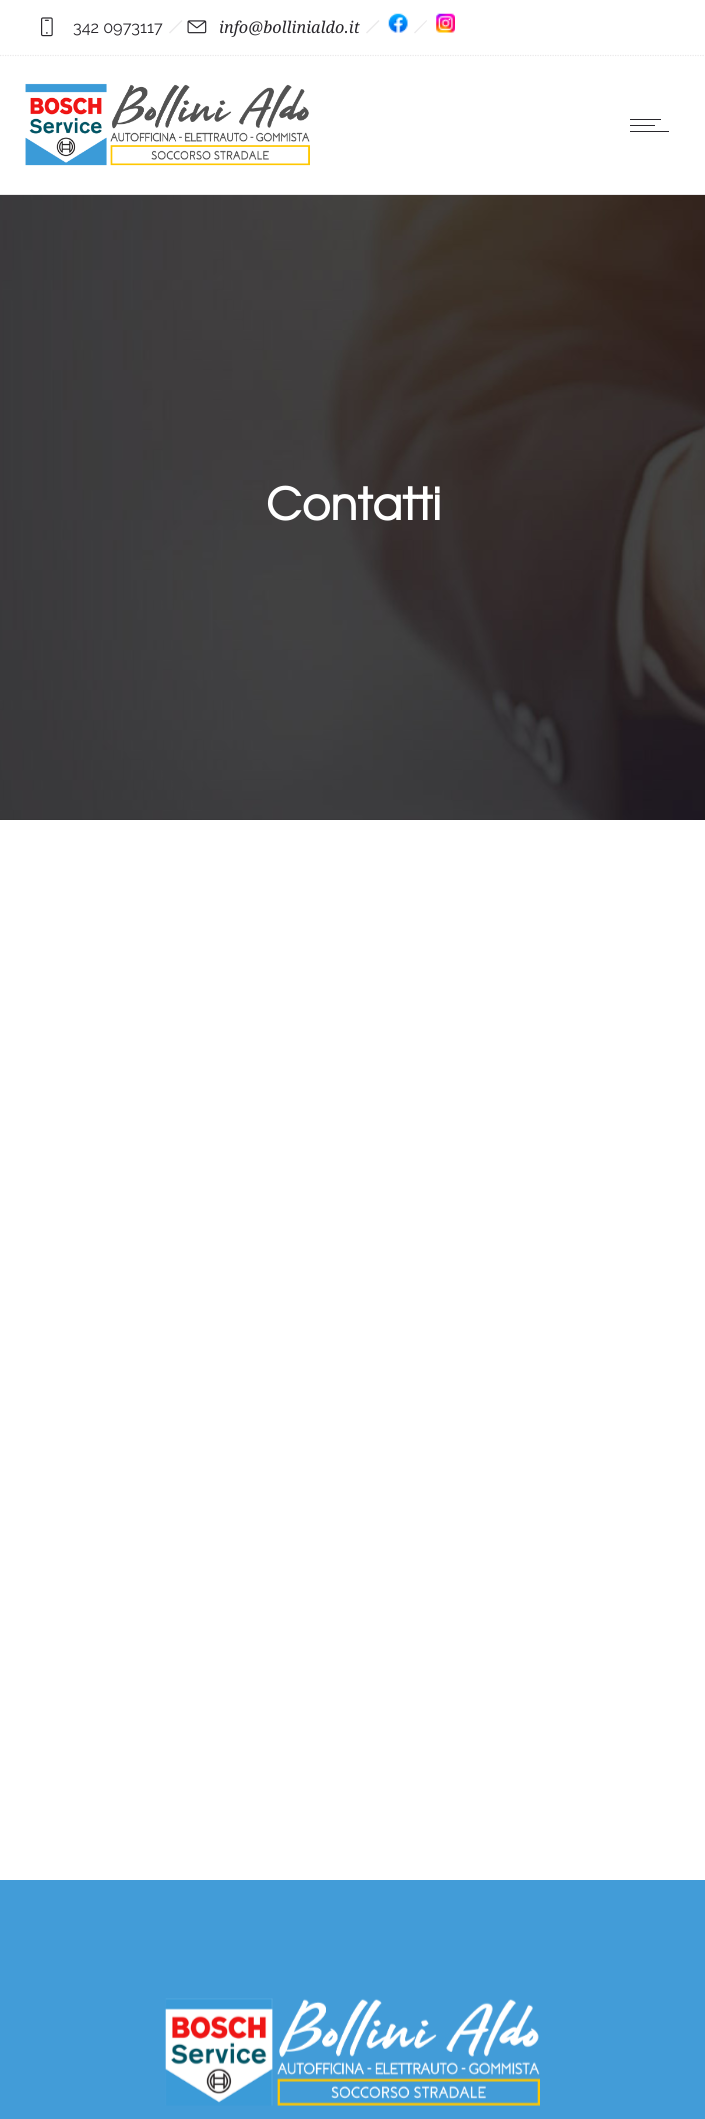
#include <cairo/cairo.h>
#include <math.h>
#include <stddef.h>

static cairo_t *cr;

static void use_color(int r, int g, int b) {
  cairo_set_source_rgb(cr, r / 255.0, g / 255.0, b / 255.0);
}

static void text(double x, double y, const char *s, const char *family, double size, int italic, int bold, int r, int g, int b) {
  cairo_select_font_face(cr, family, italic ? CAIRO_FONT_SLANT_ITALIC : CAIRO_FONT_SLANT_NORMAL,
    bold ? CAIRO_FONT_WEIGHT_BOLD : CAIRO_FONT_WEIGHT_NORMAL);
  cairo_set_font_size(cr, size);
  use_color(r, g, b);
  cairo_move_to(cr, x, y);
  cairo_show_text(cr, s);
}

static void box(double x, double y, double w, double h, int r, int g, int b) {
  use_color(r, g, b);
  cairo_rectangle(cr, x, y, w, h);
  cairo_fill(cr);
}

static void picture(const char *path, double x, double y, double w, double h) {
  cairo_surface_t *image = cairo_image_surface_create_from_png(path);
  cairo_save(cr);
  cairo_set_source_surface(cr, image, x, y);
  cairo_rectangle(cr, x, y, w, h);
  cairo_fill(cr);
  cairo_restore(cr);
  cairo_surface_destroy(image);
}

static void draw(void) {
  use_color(255, 255, 255);
  cairo_paint(cr);
  box(0, 194, 705, 1, 234, 233, 234);
  cairo_new_path(cr);
  cairo_move_to(cr, 0, 55.5);
  cairo_line_to(cr, 705, 55.5);
  cairo_set_line_width(cr, 1.2);
  cairo_set_dash(cr, (double[]){1.25, 1.25}, 2, 0);
  cairo_stroke(cr);
  picture("img_01.png", 41, 17, 12, 20);
  cairo_new_path(cr);
  cairo_move_to(cr, 181.5, 20);
  cairo_line_to(cr, 182.5, 21);
  cairo_line_to(cr, 170, 33.5);
  cairo_line_to(cr, 169, 32.5);
  cairo_close_path(cr);
  cairo_fill(cr);
  picture("img_02.png", 187, 20, 20, 14);
  picture("img_03.png", 388, 13, 20, 20);
  picture("img_04.png", 436, 13, 19, 20);
  cairo_new_path(cr);
  cairo_move_to(cr, 378.5, 20);
  cairo_line_to(cr, 379.5, 21);
  cairo_line_to(cr, 367, 33.5);
  cairo_line_to(cr, 366, 32.5);
  cairo_close_path(cr);
  cairo_move_to(cr, 426.5, 20);
  cairo_line_to(cr, 427, 21);
  cairo_line_to(cr, 415, 33.5);
  cairo_line_to(cr, 414, 32.5);
  cairo_close_path(cr);
  cairo_fill(cr);
  picture("img_05.png", 25, 83, 285, 83);
  box(630, 119, 31, 1, 40, 38, 43);
  box(630, 125, 25, 1, 40, 38, 43);
  box(630, 131, 39, 1, 40, 38, 43);
  picture("img_06.png", 0, 195, 705, 625);
  cairo_set_source_rgba(cr, 0.106, 0.106, 0.106, 0.1);
  cairo_rectangle(cr, 0, 819, 583, 1);
  cairo_fill(cr);
  box(0, 1880, 705, 239, 66, 156, 216);
  picture("img_07.png", 165, 1998, 375, 108);
  text(219, 33, "info@bollinialdo.it", "Droid Serif", 16.25, 1, 0, 40, 38, 43);
  text(73, 33, "342 0973117", "Raleway", 16.25, 0, 0, 40, 38, 43);
  text(266, 520, "Contatti", "TeX Gyre Adventor", 44, 0, 1, 255, 255, 255);
}

int main(void) {
  cairo_surface_t *surface = cairo_image_surface_create(CAIRO_FORMAT_RGB24, 705, 2119);
  cr = cairo_create(surface);
  cairo_font_options_t *options = cairo_font_options_create();
  cairo_font_options_set_hint_metrics(options, CAIRO_HINT_METRICS_OFF);
  cairo_font_options_set_hint_style(options, CAIRO_HINT_STYLE_NONE);
  cairo_set_font_options(cr, options);
  cairo_set_miter_limit(cr, 4);
  draw();
  cairo_surface_write_to_png(surface, "out.png");
  cairo_font_options_destroy(options);
  cairo_destroy(cr);
  cairo_surface_destroy(surface);
  return 0;
}
